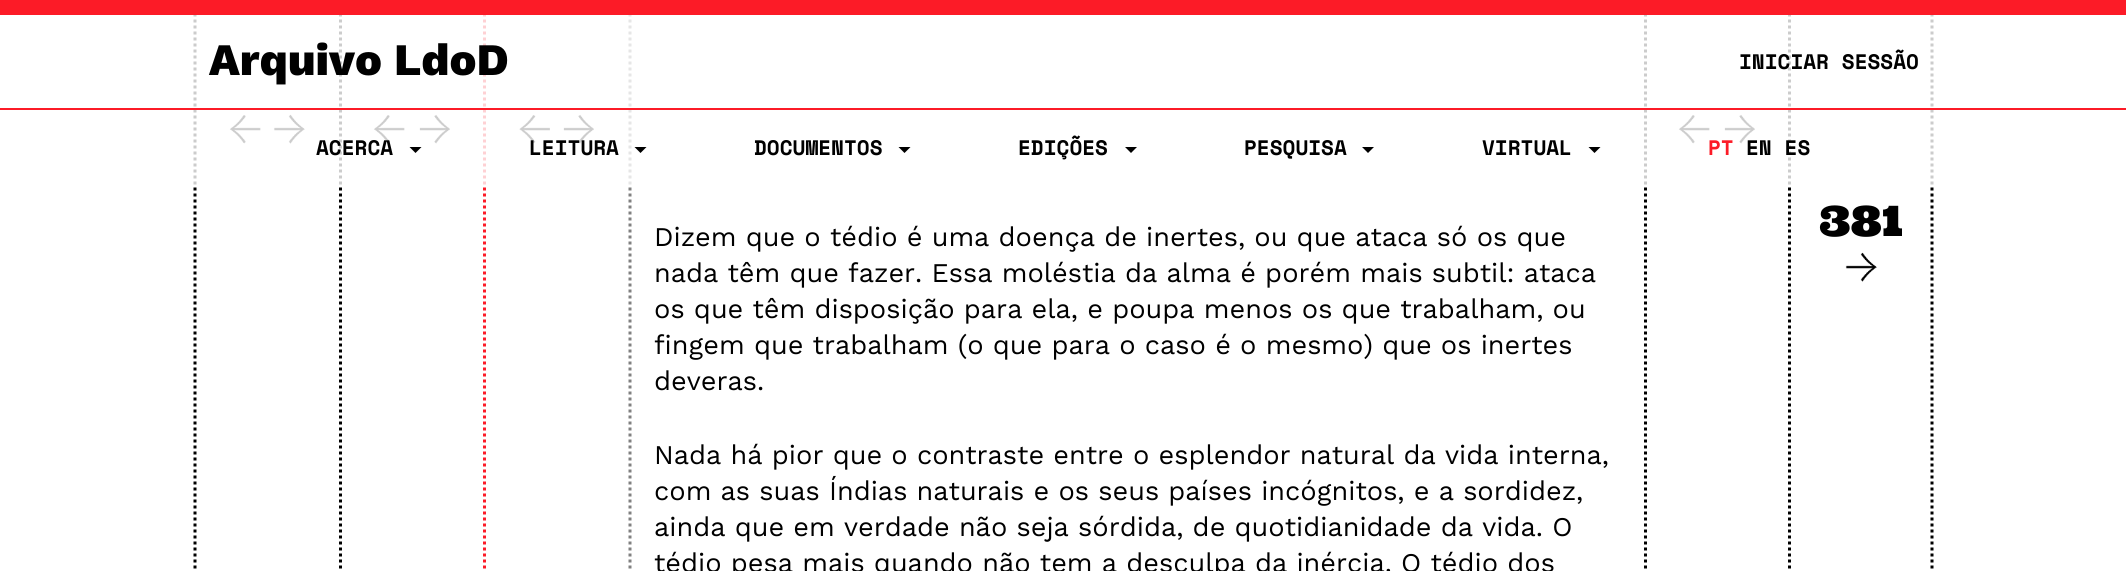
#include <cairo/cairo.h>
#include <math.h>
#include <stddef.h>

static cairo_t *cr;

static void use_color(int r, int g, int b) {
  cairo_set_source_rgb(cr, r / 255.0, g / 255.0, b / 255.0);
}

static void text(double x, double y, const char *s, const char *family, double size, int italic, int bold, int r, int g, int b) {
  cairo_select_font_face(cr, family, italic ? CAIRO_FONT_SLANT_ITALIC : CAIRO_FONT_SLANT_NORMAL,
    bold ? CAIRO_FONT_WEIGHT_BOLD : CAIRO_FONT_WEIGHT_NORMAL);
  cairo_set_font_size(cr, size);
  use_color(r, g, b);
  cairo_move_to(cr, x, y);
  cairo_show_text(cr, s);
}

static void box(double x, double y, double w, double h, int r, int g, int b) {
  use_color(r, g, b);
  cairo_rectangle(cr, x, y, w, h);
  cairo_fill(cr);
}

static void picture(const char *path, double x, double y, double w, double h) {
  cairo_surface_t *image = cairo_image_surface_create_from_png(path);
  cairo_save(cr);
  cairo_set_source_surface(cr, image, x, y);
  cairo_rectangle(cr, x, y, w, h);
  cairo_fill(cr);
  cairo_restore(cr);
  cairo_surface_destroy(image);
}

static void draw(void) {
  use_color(255, 255, 255);
  cairo_paint(cr);
  cairo_new_path(cr);
  cairo_move_to(cr, 195, -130.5);
  cairo_line_to(cr, 195, 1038);
  use_color(0, 0, 0);
  cairo_set_line_width(cr, 3);
  cairo_set_dash(cr, (double[]){3, 3}, 2, 0);
  cairo_stroke(cr);
  picture("img_01.png", 229, 115, 32, 29);
  picture("img_02.png", 273, 114, 32, 30);
  cairo_new_path(cr);
  cairo_move_to(cr, 340.5, -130.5);
  cairo_line_to(cr, 340.5, 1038);
  cairo_stroke(cr);
  picture("img_03.png", 373, 115, 32, 29);
  picture("img_04.png", 419, 114, 31, 30);
  cairo_new_path(cr);
  cairo_move_to(cr, 484.5, -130.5);
  cairo_line_to(cr, 484.5, 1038);
  use_color(252, 27, 39);
  cairo_stroke(cr);
  picture("img_05.png", 519, 115, 31, 29);
  picture("img_06.png", 563, 114, 31, 30);
  cairo_new_path(cr);
  cairo_move_to(cr, 1645.5, -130.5);
  cairo_line_to(cr, 1645.5, 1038);
  use_color(0, 0, 0);
  cairo_stroke(cr);
  picture("img_03.png", 1678, 115, 32, 29);
  picture("img_04.png", 1724, 114, 31, 30);
  cairo_new_path(cr);
  cairo_move_to(cr, 1932, -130.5);
  cairo_line_to(cr, 1932, 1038);
  cairo_stroke(cr);
  cairo_new_path(cr);
  cairo_move_to(cr, 1789.5, -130.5);
  cairo_line_to(cr, 1789.5, 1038);
  cairo_stroke(cr);
  cairo_new_path(cr);
  cairo_move_to(cr, 630, -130.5);
  cairo_line_to(cr, 630, 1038);
  use_color(128, 128, 128);
  cairo_stroke(cr);
  cairo_set_source_rgba(cr, 1, 1, 1, 0.8);
  cairo_rectangle(cr, 193, 15, 1741, 170);
  cairo_fill(cr);
  box(0, 0, 2126, 15, 252, 27, 39);
  box(0, 108, 2126, 2, 252, 27, 39);
  use_color(0, 0, 0);
  cairo_new_path(cr);
  cairo_move_to(cr, 409.5, 147);
  cairo_line_to(cr, 421.5, 147);
  cairo_line_to(cr, 415.5, 153);
  cairo_close_path(cr);
  cairo_fill(cr);
  cairo_new_path(cr);
  cairo_move_to(cr, 634.5, 147);
  cairo_line_to(cr, 646.5, 147);
  cairo_line_to(cr, 640.5, 153);
  cairo_close_path(cr);
  cairo_fill(cr);
  cairo_new_path(cr);
  cairo_move_to(cr, 898.5, 147);
  cairo_line_to(cr, 910.5, 147);
  cairo_line_to(cr, 904.5, 153);
  cairo_close_path(cr);
  cairo_fill(cr);
  cairo_new_path(cr);
  cairo_move_to(cr, 1125, 147);
  cairo_line_to(cr, 1137, 147);
  cairo_line_to(cr, 1131, 153);
  cairo_close_path(cr);
  cairo_fill(cr);
  cairo_new_path(cr);
  cairo_move_to(cr, 1362, 147);
  cairo_line_to(cr, 1374, 147);
  cairo_line_to(cr, 1368, 153);
  cairo_close_path(cr);
  cairo_fill(cr);
  cairo_new_path(cr);
  cairo_move_to(cr, 1588.5, 147);
  cairo_line_to(cr, 1600.5, 147);
  cairo_line_to(cr, 1594.5, 153);
  cairo_close_path(cr);
  cairo_fill(cr);
  picture("img_02.png", 1845, 252, 32, 30);
  text(209, 75, "Arquivo LdoD", "Work Sans ExtraBold", 45, 0, 0, 0, 0, 0);
  text(1739, 69, "INICIAR SESSÃO", "Space Mono", 21, 0, 1, 0, 0, 0);
  text(316, 155, "ACERCA", "Space Mono", 21, 0, 1, 0, 0, 0);
  text(529, 155, "LEITURA", "Space Mono", 21, 0, 1, 0, 0, 0);
  text(754, 155, "DOCUMENTOS", "Space Mono", 21, 0, 1, 0, 0, 0);
  text(1018, 155, "EDIÇÕES", "Space Mono", 21, 0, 1, 0, 0, 0);
  text(1244, 155, "PESQUISA", "Space Mono", 21, 0, 1, 0, 0, 0);
  text(1482, 155, "VIRTUAL", "Space Mono", 21, 0, 1, 0, 0, 0);
  text(1708, 155, "PT", "Space Mono", 21, 0, 1, 252, 27, 39);
  text(1746, 155, "EN ES", "Space Mono", 21, 0, 1, 0, 0, 0);
  text(1819, 236, "381", "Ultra", 42, 0, 0, 0, 0, 0);
  text(654, 246, "Dizem que o tédio é uma doença de inertes, ou que ataca só os que", "Work Sans", 27, 0, 0, 0, 0, 0);
  text(654, 282, "nada têm que fazer. Essa moléstia da alma é porém mais subtil: ataca", "Work Sans", 27, 0, 0, 0, 0, 0);
  text(654, 318, "os que têm disposição para ela, e poupa menos os que trabalham, ou", "Work Sans", 27, 0, 0, 0, 0, 0);
  text(654, 354, "fingem que trabalham (o que para o caso é o mesmo) que os inertes", "Work Sans", 27, 0, 0, 0, 0, 0);
  text(654, 390, "deveras.", "Work Sans", 27, 0, 0, 0, 0, 0);
  text(654, 464, "Nada há pior que o contraste entre o esplendor natural da vida interna,", "Work Sans", 27, 0, 0, 0, 0, 0);
  text(654, 500, "com as suas Índias naturais e os seus países incógnitos, e a sordidez,", "Work Sans", 27, 0, 0, 0, 0, 0);
  text(654, 536, "ainda que em verdade não seja sórdida, de quotidianidade da vida. O", "Work Sans", 27, 0, 0, 0, 0, 0);
  text(654, 572, "tédio pesa mais quando não tem a desculpa da inércia. O tédio dos", "Work Sans", 27, 0, 0, 0, 0, 0);
}

int main(void) {
  cairo_surface_t *surface = cairo_image_surface_create(CAIRO_FORMAT_RGB24, 2126, 571);
  cr = cairo_create(surface);
  cairo_font_options_t *options = cairo_font_options_create();
  cairo_font_options_set_hint_metrics(options, CAIRO_HINT_METRICS_OFF);
  cairo_font_options_set_hint_style(options, CAIRO_HINT_STYLE_NONE);
  cairo_set_font_options(cr, options);
  cairo_set_miter_limit(cr, 4);
  draw();
  cairo_surface_write_to_png(surface, "out.png");
  cairo_font_options_destroy(options);
  cairo_destroy(cr);
  cairo_surface_destroy(surface);
  return 0;
}
